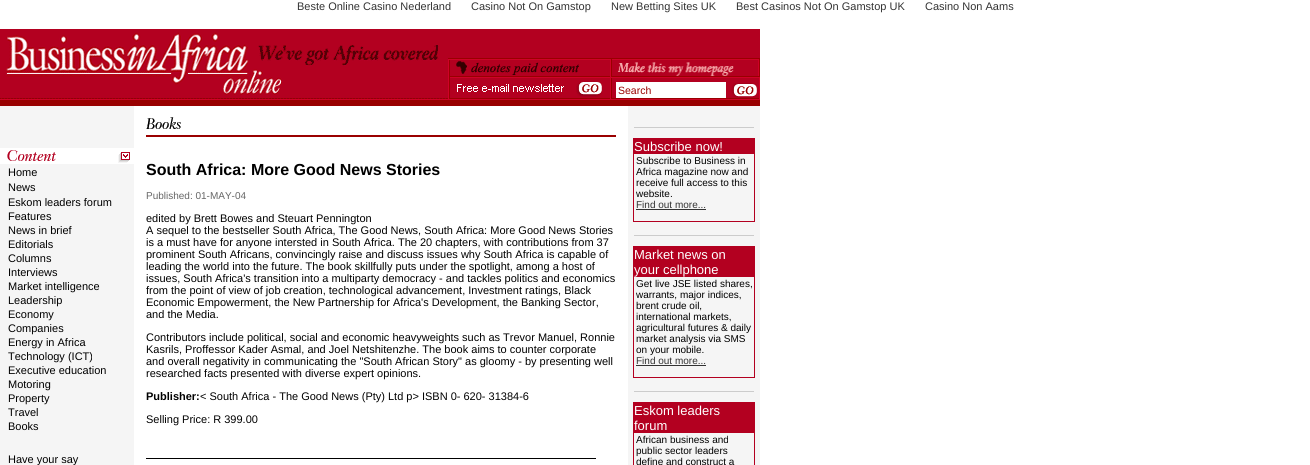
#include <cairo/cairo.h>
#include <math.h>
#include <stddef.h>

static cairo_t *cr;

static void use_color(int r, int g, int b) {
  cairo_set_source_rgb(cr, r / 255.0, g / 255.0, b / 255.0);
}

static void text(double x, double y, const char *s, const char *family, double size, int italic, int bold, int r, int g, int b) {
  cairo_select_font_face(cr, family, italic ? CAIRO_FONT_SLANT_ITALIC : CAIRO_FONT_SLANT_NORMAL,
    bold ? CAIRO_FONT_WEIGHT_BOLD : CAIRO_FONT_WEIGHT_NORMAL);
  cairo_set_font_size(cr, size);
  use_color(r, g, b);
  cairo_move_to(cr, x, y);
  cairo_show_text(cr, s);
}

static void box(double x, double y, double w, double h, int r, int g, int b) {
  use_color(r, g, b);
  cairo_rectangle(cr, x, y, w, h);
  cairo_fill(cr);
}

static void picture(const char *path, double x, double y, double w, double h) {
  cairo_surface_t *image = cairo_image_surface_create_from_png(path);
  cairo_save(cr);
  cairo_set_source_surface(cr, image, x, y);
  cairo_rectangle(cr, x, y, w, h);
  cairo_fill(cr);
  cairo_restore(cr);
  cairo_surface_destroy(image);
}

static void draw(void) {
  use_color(255, 255, 255);
  cairo_paint(cr);
  picture("img_01.png", 0, 29, 447, 71);
  box(447, 29, 313, 28, 179, 0, 32);
  picture("img_02.png", 447, 57, 162, 43);
  box(609, 78, 1, 20, 179, 0, 32);
  picture("img_03.png", 610, 78, 150, 22);
  picture("img_04.png", 609, 57, 151, 21);
  box(616, 82, 110, 16, 255, 255, 255);
  picture("img_05.png", 731, 83, 26, 15);
  picture("img_06.png", 609, 98, 150, 2);
  box(0, 106, 134, 359, 245, 245, 245);
  picture("img_07.png", 0, 148, 134, 16);
  box(0, 100, 760, 6, 153, 0, 0);
  picture("img_08.png", 146, 117, 35, 12);
  box(146, 135, 470, 2, 154, 0, 0);
  box(146, 458, 450, 1, 0, 0, 0);
  box(628, 106, 132, 359, 245, 245, 245);
  box(634, 127, 120, 1, 204, 204, 204);
  cairo_rectangle(cr, 633.5, 138.5, 121, 83);
  use_color(179, 0, 32);
  cairo_set_line_width(cr, 1);
  cairo_stroke(cr);
  box(634, 139, 120, 15, 179, 0, 32);
  box(636, 209, 70, 1, 51, 51, 51);
  box(634, 235, 120, 1, 204, 204, 204);
  cairo_rectangle(cr, 633.5, 246.5, 121, 131);
  use_color(179, 0, 32);
  cairo_stroke(cr);
  box(634, 247, 120, 30, 179, 0, 32);
  box(636, 365, 70, 1, 51, 51, 51);
  box(634, 391, 120, 1, 204, 204, 204);
  cairo_rectangle(cr, 633.5, 402.5, 121, 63);
  use_color(179, 0, 32);
  cairo_stroke(cr);
  box(634, 403, 120, 30, 179, 0, 32);
  text(297, 10, "Beste Online Casino Nederland", "Liberation Sans", 11, 0, 0, 51, 51, 51);
  text(471, 10, "Casino Not On Gamstop", "Liberation Sans", 11, 0, 0, 51, 51, 51);
  text(611, 10, "New Betting Sites UK", "Liberation Sans", 11, 0, 0, 51, 51, 51);
  text(736, 10, "Best Casinos Not On Gamstop UK", "Liberation Sans", 11, 0, 0, 51, 51, 51);
  text(925, 10, "Casino Non Aams", "Liberation Sans", 11, 0, 0, 51, 51, 51);
  text(618, 94, "Search", "Liberation Sans", 10.5, 0, 0, 153, 0, 0);
  text(146, 175, "South Africa: More Good News Stories", "Liberation Sans", 16, 0, 1, 0, 0, 0);
  text(146, 199, "Published: 01-MAY-04", "Liberation Sans", 10, 0, 0, 102, 102, 102);
  text(146, 222, "edited by Brett Bowes and Steuart Pennington", "Liberation Sans", 11, 0, 0, 0, 0, 0);
  text(146, 234, "A sequel to the bestseller South Africa, The Good News, South Africa: More Good News Stories", "Liberation Sans", 11, 0, 0, 0, 0, 0);
  text(146, 246, "is a must have for anyone intersted in South Africa. The 20 chapters, with contributions from 37", "Liberation Sans", 11, 0, 0, 0, 0, 0);
  text(146, 258, "prominent South Africans, convincingly raise and discuss issues why South Africa is capable of", "Liberation Sans", 11, 0, 0, 0, 0, 0);
  text(146, 270, "leading the world into the future. The book skillfully puts under the spotlight, among a host of", "Liberation Sans", 11, 0, 0, 0, 0, 0);
  text(146, 282, "issues, South Africa's transition into a multiparty democracy - and tackles politics and economics", "Liberation Sans", 11, 0, 0, 0, 0, 0);
  text(146, 294, "from the point of view of job creation, technological advancement, Investment ratings, Black", "Liberation Sans", 11, 0, 0, 0, 0, 0);
  text(146, 306, "Economic Empowerment, the New Partnership for Africa's Development, the Banking Sector,", "Liberation Sans", 11, 0, 0, 0, 0, 0);
  text(146, 318, "and the Media.", "Liberation Sans", 11, 0, 0, 0, 0, 0);
  text(146, 341, "Contributors include political, social and economic heavyweights such as Trevor Manuel, Ronnie", "Liberation Sans", 11, 0, 0, 0, 0, 0);
  text(146, 353, "Kasrils, Proffessor Kader Asmal, and Joel Netshitenzhe. The book aims to counter corporate", "Liberation Sans", 11, 0, 0, 0, 0, 0);
  text(146, 365, "and overall negativity in communicating the \"South African Story\" as gloomy - by presenting well", "Liberation Sans", 11, 0, 0, 0, 0, 0);
  text(146, 377, "researched facts presented with diverse expert opinions.", "Liberation Sans", 11, 0, 0, 0, 0, 0);
  text(146, 400, "Publisher:", "Liberation Sans", 11, 0, 1, 0, 0, 0);
  text(200, 400, "< South Africa - The Good News (Pty) Ltd p> ISBN 0- 620- 31384-6", "Liberation Sans", 11, 0, 0, 0, 0, 0);
  text(146, 423, "Selling Price: R 399.00", "Liberation Sans", 11, 0, 0, 0, 0, 0);
  text(634, 151, "Subscribe now!", "Liberation Sans", 13, 0, 0, 255, 255, 255);
  text(636, 164, "Subscribe to Business in", "Liberation Sans", 10, 0, 0, 0, 0, 0);
  text(636, 175, "Africa magazine now and", "Liberation Sans", 10, 0, 0, 0, 0, 0);
  text(636, 186, "receive full access to this", "Liberation Sans", 10, 0, 0, 0, 0, 0);
  text(636, 197, "website.", "Liberation Sans", 10, 0, 0, 0, 0, 0);
  text(636, 208, "Find out more...", "Liberation Sans", 10, 0, 0, 51, 51, 51);
  text(634, 259, "Market news on", "Liberation Sans", 13, 0, 0, 255, 255, 255);
  text(634, 274, "your cellphone", "Liberation Sans", 13, 0, 0, 255, 255, 255);
  text(636, 287, "Get live JSE listed shares,", "Liberation Sans", 10, 0, 0, 0, 0, 0);
  text(636, 298, "warrants, major indices,", "Liberation Sans", 10, 0, 0, 0, 0, 0);
  text(636, 309, "brent crude oil,", "Liberation Sans", 10, 0, 0, 0, 0, 0);
  text(636, 320, "international markets,", "Liberation Sans", 10, 0, 0, 0, 0, 0);
  text(636, 331, "agricultural futures & daily", "Liberation Sans", 10, 0, 0, 0, 0, 0);
  text(636, 342, "market analysis via SMS", "Liberation Sans", 10, 0, 0, 0, 0, 0);
  text(636, 353, "on your mobile.", "Liberation Sans", 10, 0, 0, 0, 0, 0);
  text(636, 364, "Find out more...", "Liberation Sans", 10, 0, 0, 51, 51, 51);
  text(634, 415, "Eskom leaders", "Liberation Sans", 13, 0, 0, 255, 255, 255);
  text(634, 430, "forum", "Liberation Sans", 13, 0, 0, 255, 255, 255);
  text(636, 443, "African business and", "Liberation Sans", 10, 0, 0, 0, 0, 0);
  text(636, 454, "public sector leaders", "Liberation Sans", 10, 0, 0, 0, 0, 0);
  text(636, 465, "define and construct a", "Liberation Sans", 10, 0, 0, 0, 0, 0);
  text(8, 176, "Home", "Liberation Sans", 11, 0, 0, 0, 0, 0);
  text(8, 191, "News", "Liberation Sans", 11, 0, 0, 0, 0, 0);
  text(8, 206, "Eskom leaders forum", "Liberation Sans", 11, 0, 0, 0, 0, 0);
  text(8, 220, "Features", "Liberation Sans", 11, 0, 0, 0, 0, 0);
  text(8, 234, "News in brief", "Liberation Sans", 11, 0, 0, 0, 0, 0);
  text(8, 248, "Editorials", "Liberation Sans", 11, 0, 0, 0, 0, 0);
  text(8, 262, "Columns", "Liberation Sans", 11, 0, 0, 0, 0, 0);
  text(8, 276, "Interviews", "Liberation Sans", 11, 0, 0, 0, 0, 0);
  text(8, 290, "Market intelligence", "Liberation Sans", 11, 0, 0, 0, 0, 0);
  text(8, 304, "Leadership", "Liberation Sans", 11, 0, 0, 0, 0, 0);
  text(8, 318, "Economy", "Liberation Sans", 11, 0, 0, 0, 0, 0);
  text(8, 332, "Companies", "Liberation Sans", 11, 0, 0, 0, 0, 0);
  text(8, 346, "Energy in Africa", "Liberation Sans", 11, 0, 0, 0, 0, 0);
  text(8, 360, "Technology (ICT)", "Liberation Sans", 11, 0, 0, 0, 0, 0);
  text(8, 374, "Executive education", "Liberation Sans", 11, 0, 0, 0, 0, 0);
  text(8, 388, "Motoring", "Liberation Sans", 11, 0, 0, 0, 0, 0);
  text(8, 402, "Property", "Liberation Sans", 11, 0, 0, 0, 0, 0);
  text(8, 416, "Travel", "Liberation Sans", 11, 0, 0, 0, 0, 0);
  text(8, 430, "Books", "Liberation Sans", 11, 0, 0, 0, 0, 0);
  text(8, 463, "Have your say", "Liberation Sans", 11, 0, 0, 0, 0, 0);
}

int main(void) {
  cairo_surface_t *surface = cairo_image_surface_create(CAIRO_FORMAT_RGB24, 1310, 465);
  cr = cairo_create(surface);
  cairo_font_options_t *options = cairo_font_options_create();
  cairo_font_options_set_hint_metrics(options, CAIRO_HINT_METRICS_OFF);
  cairo_font_options_set_hint_style(options, CAIRO_HINT_STYLE_NONE);
  cairo_set_font_options(cr, options);
  cairo_set_miter_limit(cr, 4);
  draw();
  cairo_surface_write_to_png(surface, "out.png");
  cairo_font_options_destroy(options);
  cairo_destroy(cr);
  cairo_surface_destroy(surface);
  return 0;
}
